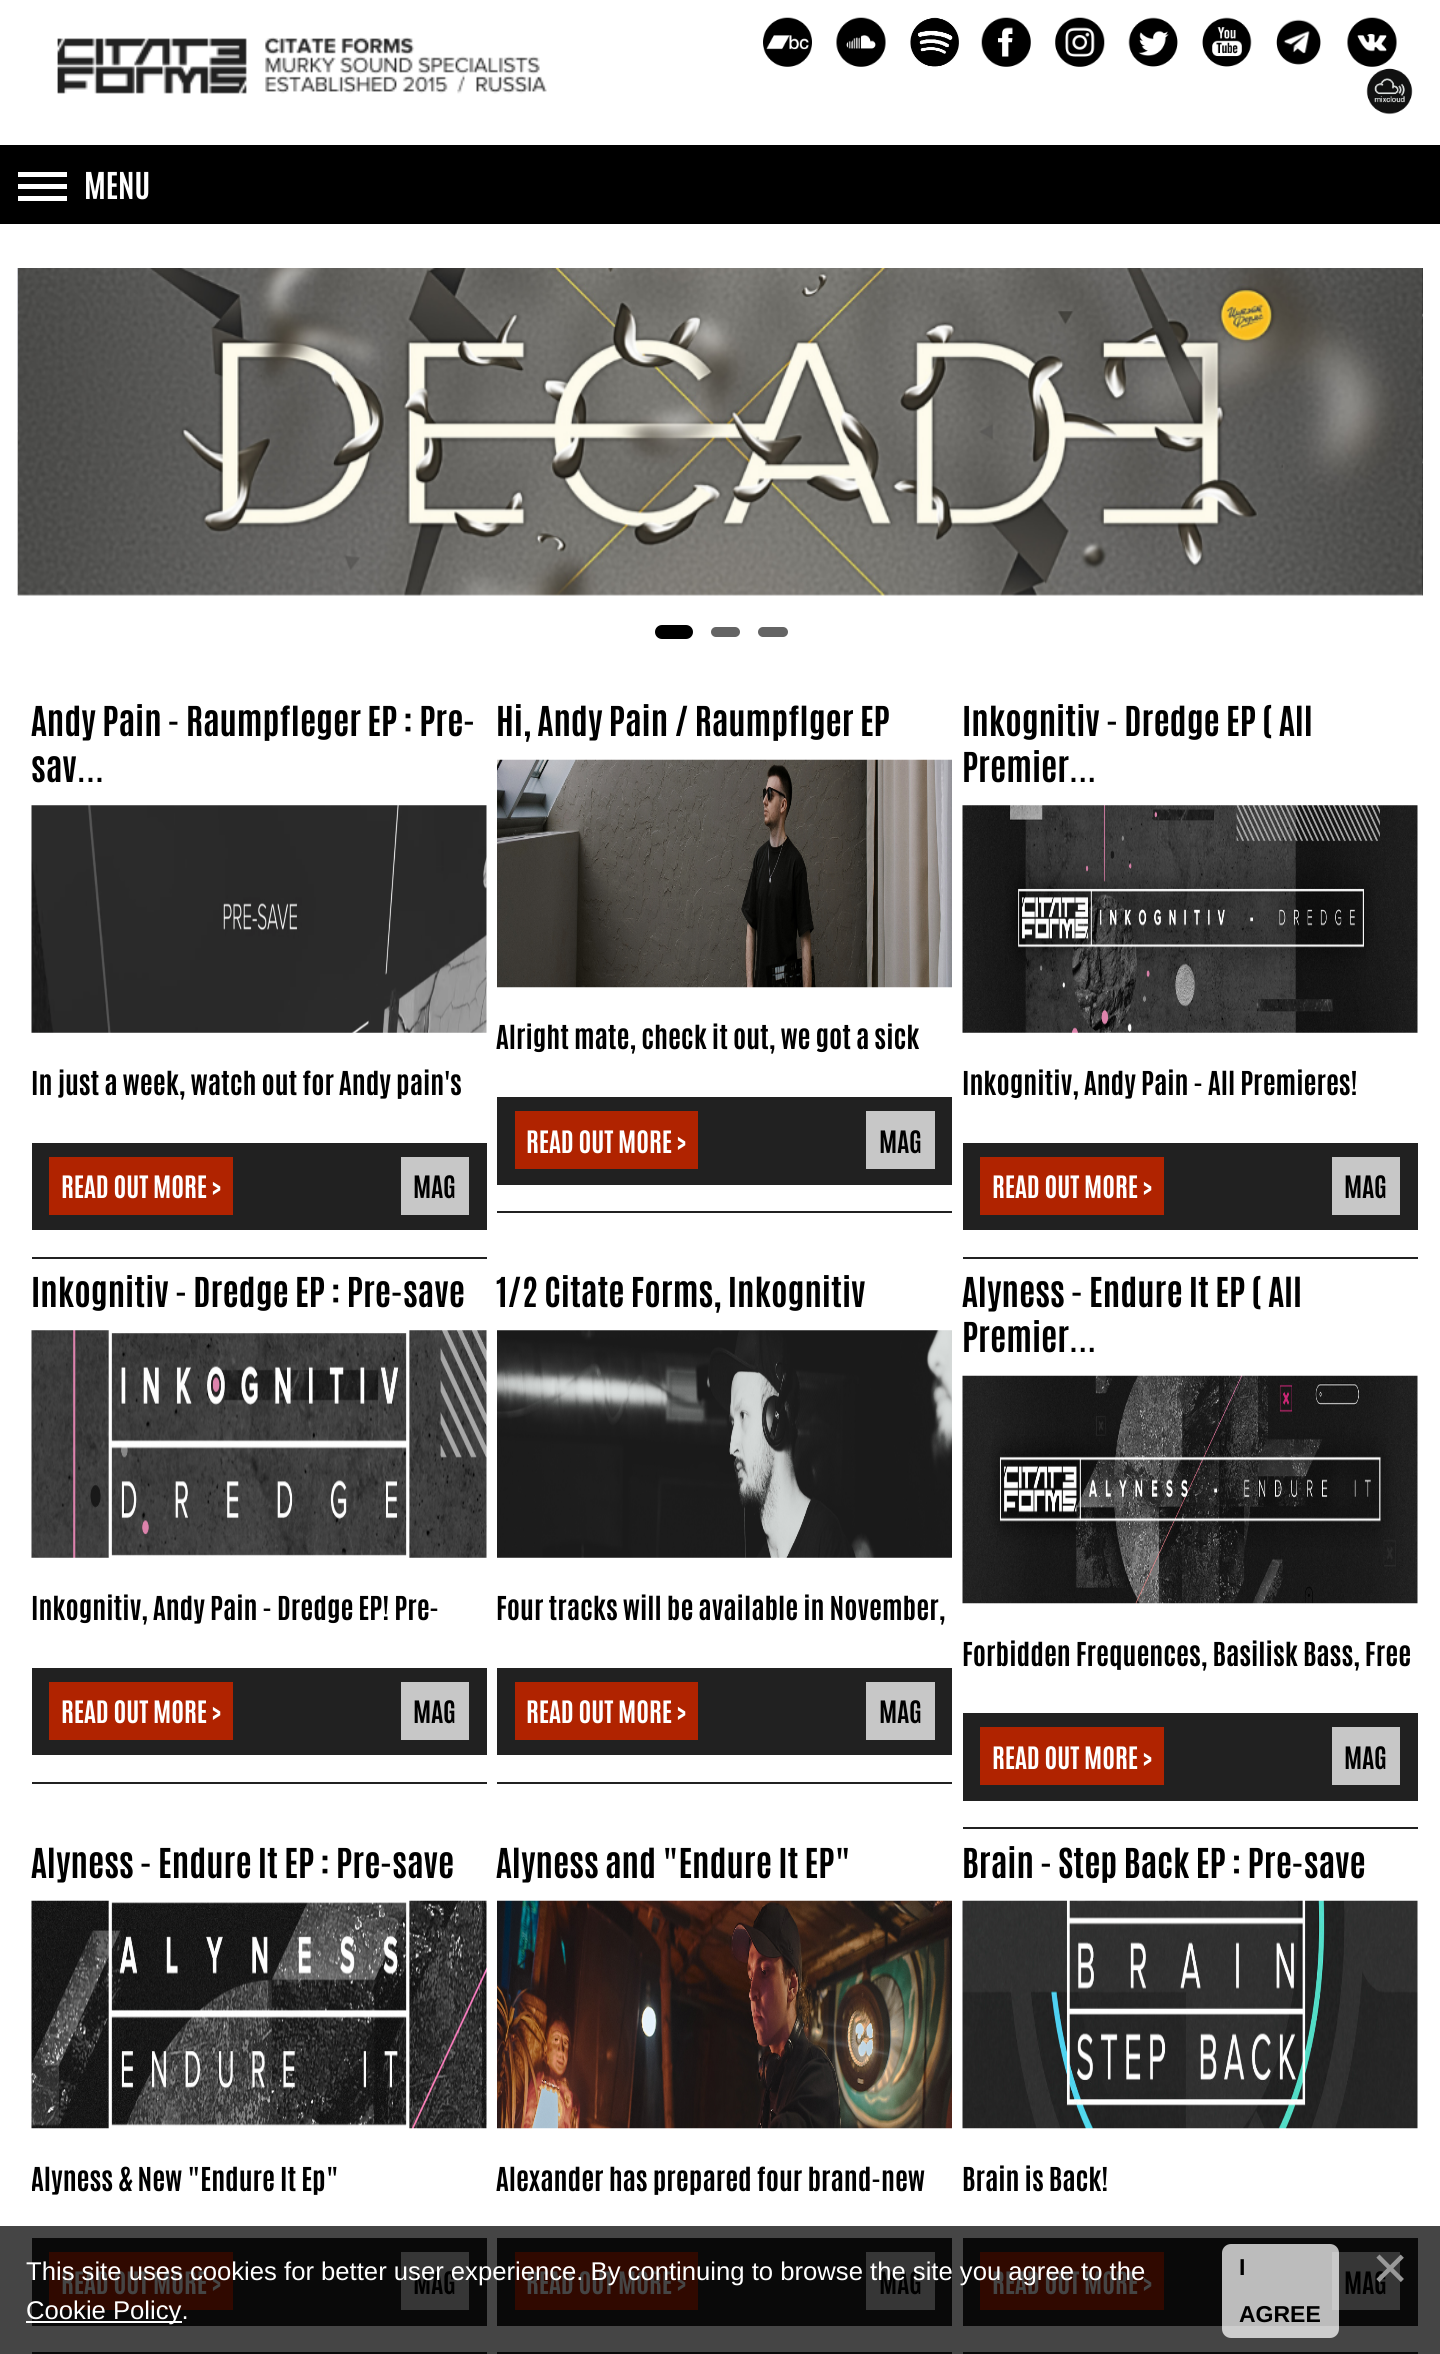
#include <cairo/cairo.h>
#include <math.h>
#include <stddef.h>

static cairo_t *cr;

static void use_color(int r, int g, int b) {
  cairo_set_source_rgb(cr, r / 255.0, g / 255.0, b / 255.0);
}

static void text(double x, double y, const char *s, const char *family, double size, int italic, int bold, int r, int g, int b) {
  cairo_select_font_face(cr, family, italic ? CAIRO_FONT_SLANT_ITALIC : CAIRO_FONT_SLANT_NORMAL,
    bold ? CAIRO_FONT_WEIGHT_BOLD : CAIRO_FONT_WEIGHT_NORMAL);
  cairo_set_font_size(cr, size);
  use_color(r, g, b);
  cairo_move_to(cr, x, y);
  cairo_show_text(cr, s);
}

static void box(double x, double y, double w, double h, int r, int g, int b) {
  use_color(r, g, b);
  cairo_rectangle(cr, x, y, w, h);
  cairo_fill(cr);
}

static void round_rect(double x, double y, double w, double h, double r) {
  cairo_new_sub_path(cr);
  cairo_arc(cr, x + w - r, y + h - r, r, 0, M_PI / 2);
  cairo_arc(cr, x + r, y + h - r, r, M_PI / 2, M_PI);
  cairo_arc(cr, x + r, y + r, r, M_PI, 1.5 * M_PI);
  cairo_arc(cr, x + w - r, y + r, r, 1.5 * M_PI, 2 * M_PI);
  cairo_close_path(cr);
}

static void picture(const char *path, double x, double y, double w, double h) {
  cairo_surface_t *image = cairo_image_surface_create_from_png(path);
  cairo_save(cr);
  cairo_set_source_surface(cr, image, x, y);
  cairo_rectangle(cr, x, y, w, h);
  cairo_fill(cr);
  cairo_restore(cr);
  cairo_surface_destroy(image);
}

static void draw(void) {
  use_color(255, 255, 255);
  cairo_paint(cr);
  box(0, 2226, 1440, 128, 69, 69, 69);
  picture("img_01.png", 57, 37, 490, 57);
  picture("img_02.png", 763, 17, 49, 50);
  picture("img_03.png", 836, 17, 50, 50);
  picture("img_04.png", 910, 17, 49, 50);
  picture("img_05.png", 981, 17, 50, 50);
  picture("img_06.png", 1055, 17, 50, 50);
  picture("img_07.png", 1128, 17, 50, 50);
  picture("img_08.png", 1202, 17, 50, 50);
  picture("img_09.png", 1276, 19, 45, 46);
  picture("img_10.png", 1347, 17, 50, 50);
  picture("img_11.png", 1366, 68, 47, 47);
  box(0, 145, 1440, 79, 0, 0, 0);
  box(18, 172, 49, 5, 255, 255, 255);
  box(18, 184, 49, 5, 255, 255, 255);
  box(18, 196, 49, 5, 255, 255, 255);
  picture("img_12.png", 17, 268, 2, 328);
  picture("img_13.png", 18, 268, 1405, 328);
  picture("img_14.png", 1422, 268, 1, 328);
  use_color(0, 0, 0);
  round_rect(655, 625, 38, 14, 7);
  cairo_fill(cr);
  use_color(100, 100, 100);
  round_rect(711, 627, 29, 10, 5);
  cairo_fill(cr);
  round_rect(758, 627, 30, 10, 5);
  cairo_fill(cr);
  box(32, 1257, 455, 2, 33, 33, 33);
  picture("img_15.png", 31, 805, 456, 228);
  box(32, 1143, 455, 87, 33, 33, 33);
  box(49, 1157, 184, 58, 176, 35, 0);
  box(401, 1157, 68, 58, 199, 199, 199);
  box(497, 1211, 455, 2, 33, 33, 33);
  picture("img_16.png", 497, 759, 455, 229);
  box(497, 1097, 455, 88, 33, 33, 33);
  box(515, 1111, 183, 58, 176, 35, 0);
  box(866, 1111, 69, 58, 199, 199, 199);
  box(963, 1257, 455, 2, 33, 33, 33);
  picture("img_17.png", 962, 805, 456, 228);
  box(963, 1143, 455, 87, 33, 33, 33);
  box(980, 1157, 184, 58, 176, 35, 0);
  box(1332, 1157, 68, 58, 199, 199, 199);
  box(32, 1782, 455, 2, 33, 33, 33);
  picture("img_18.png", 31, 1330, 456, 228);
  box(32, 1668, 455, 87, 33, 33, 33);
  box(49, 1682, 184, 58, 176, 35, 0);
  box(401, 1682, 68, 58, 199, 199, 199);
  box(497, 1782, 455, 2, 33, 33, 33);
  picture("img_19.png", 497, 1330, 455, 228);
  box(497, 1668, 455, 87, 33, 33, 33);
  box(515, 1682, 183, 58, 176, 35, 0);
  box(866, 1682, 69, 58, 199, 199, 199);
  box(963, 1827, 455, 2, 33, 33, 33);
  picture("img_20.png", 962, 1375, 456, 229);
  box(963, 1713, 455, 88, 33, 33, 33);
  box(980, 1727, 184, 58, 176, 35, 0);
  box(1332, 1727, 68, 58, 199, 199, 199);
  box(32, 2352, 455, 2, 9, 9, 9);
  picture("img_21.png", 31, 1900, 456, 229);
  box(32, 2238, 455, 88, 9, 9, 9);
  box(49, 2252, 184, 58, 48, 9, 0);
  box(401, 2252, 68, 58, 54, 54, 54);
  box(497, 2352, 455, 2, 9, 9, 9);
  picture("img_22.png", 497, 1900, 455, 229);
  box(497, 2238, 455, 88, 9, 9, 9);
  box(515, 2252, 183, 58, 48, 9, 0);
  box(866, 2252, 69, 58, 54, 54, 54);
  box(963, 2352, 455, 2, 9, 9, 9);
  picture("img_23.png", 962, 1900, 456, 229);
  box(963, 2238, 455, 88, 9, 9, 9);
  box(980, 2252, 184, 58, 48, 9, 0);
  box(1332, 2252, 68, 58, 54, 54, 54);
  box(26, 2321, 156, 2, 255, 255, 255);
  cairo_set_source_rgba(cr, 1, 1, 1, 0.73);
  round_rect(1222, 2244, 117, 94, 9);
  cairo_fill(cr);
  text(84, 199, "MENU", "Antonio", 31.5, 0, 1, 255, 255, 255);
  text(31, 736, "Andy Pain - Raumpfleger EP : Pre-", "Antonio", 35, 0, 1, 0, 0, 0);
  text(31, 782, "sav...", "Antonio", 35, 0, 1, 0, 0, 0);
  text(31, 1095, "In just a week, watch out for Andy pain's", "Antonio", 28, 0, 1, 0, 0, 0);
  text(61, 1198, "READ OUT MORE >", "Antonio", 26.25, 0, 1, 255, 255, 255);
  text(413, 1198, "MAG", "Antonio", 26.25, 0, 1, 0, 0, 0);
  text(496, 736, "Hi, Andy Pain / Raumpflger EP", "Antonio", 35, 0, 1, 0, 0, 0);
  text(496, 1049, "Alright mate, check it out, we got a sick", "Antonio", 28, 0, 1, 0, 0, 0);
  text(526, 1153, "READ OUT MORE >", "Antonio", 26.25, 0, 1, 255, 255, 255);
  text(879, 1153, "MAG", "Antonio", 26.25, 0, 1, 0, 0, 0);
  text(962, 736, "Inkognitiv - Dredge EP ( All", "Antonio", 35, 0, 1, 0, 0, 0);
  text(962, 782, "Premier...", "Antonio", 35, 0, 1, 0, 0, 0);
  text(962, 1095, "Inkognitiv, Andy Pain - All Premieres!", "Antonio", 28, 0, 1, 0, 0, 0);
  text(992, 1198, "READ OUT MORE >", "Antonio", 26.25, 0, 1, 255, 255, 255);
  text(1344, 1198, "MAG", "Antonio", 26.25, 0, 1, 0, 0, 0);
  text(31, 1307, "Inkognitiv - Dredge EP : Pre-save", "Antonio", 35, 0, 1, 0, 0, 0);
  text(31, 1620, "Inkognitiv, Andy Pain - Dredge EP! Pre-", "Antonio", 28, 0, 1, 0, 0, 0);
  text(61, 1723, "READ OUT MORE >", "Antonio", 26.25, 0, 1, 255, 255, 255);
  text(413, 1723, "MAG", "Antonio", 26.25, 0, 1, 0, 0, 0);
  text(496, 1307, "1/2 Citate Forms, Inkognitiv", "Antonio", 35, 0, 1, 0, 0, 0);
  text(496, 1620, "Four tracks will be available in November,", "Antonio", 28, 0, 1, 0, 0, 0);
  text(526, 1723, "READ OUT MORE >", "Antonio", 26.25, 0, 1, 255, 255, 255);
  text(879, 1723, "MAG", "Antonio", 26.25, 0, 1, 0, 0, 0);
  text(962, 1307, "Alyness - Endure It EP ( All", "Antonio", 35, 0, 1, 0, 0, 0);
  text(962, 1352, "Premier...", "Antonio", 35, 0, 1, 0, 0, 0);
  text(962, 1666, "Forbidden Frequences, Basilisk Bass, Free", "Antonio", 28, 0, 1, 0, 0, 0);
  text(992, 1769, "READ OUT MORE >", "Antonio", 26.25, 0, 1, 255, 255, 255);
  text(1344, 1769, "MAG", "Antonio", 26.25, 0, 1, 0, 0, 0);
  text(31, 1878, "Alyness - Endure It EP : Pre-save", "Antonio", 35, 0, 1, 0, 0, 0);
  cairo_save(cr);
  cairo_rectangle(cr, 32, 2133, 455, 79);
  cairo_clip(cr);
  text(31, 2191, "Alyness & New \"Endure It Ep\"", "Antonio", 28, 0, 1, 0, 0, 0);
  cairo_restore(cr);
  text(61, 2294, "READ OUT MORE >", "Antonio", 26.25, 0, 1, 69, 69, 69);
  text(413, 2294, "MAG", "Antonio", 26.25, 0, 1, 0, 0, 0);
  text(496, 1878, "Alyness and \"Endure It EP\"", "Antonio", 35, 0, 1, 0, 0, 0);
  text(496, 2191, "Alexander has prepared four brand-new", "Antonio", 28, 0, 1, 0, 0, 0);
  text(526, 2294, "READ OUT MORE >", "Antonio", 26.25, 0, 1, 69, 69, 69);
  text(879, 2294, "MAG", "Antonio", 26.25, 0, 1, 0, 0, 0);
  text(962, 1878, "Brain - Step Back EP : Pre-save", "Antonio", 35, 0, 1, 0, 0, 0);
  text(962, 2191, "Brain is Back!", "Antonio", 28, 0, 1, 0, 0, 0);
  text(992, 2294, "READ OUT MORE >", "Antonio", 26.25, 0, 1, 69, 69, 69);
  text(1344, 2294, "MAG", "Antonio", 26.25, 0, 1, 0, 0, 0);
  text(26, 2280, "This site uses cookies for better user experience. By continuing to browse the site you agree to the", "Liberation Sans", 25.65, 0, 0, 255, 255, 255);
  text(26, 2319, "Cookie Policy.", "Liberation Sans", 25.65, 0, 0, 255, 255, 255);
  text(1239, 2275, "I", "Liberation Sans", 23, 0, 1, 0, 0, 0);
  text(1239, 2322, "AGREE", "Liberation Sans", 23, 0, 1, 0, 0, 0);
  text(1372, 2289, "×", "Liberation Sans", 62, 0, 0, 153, 153, 153);
}

int main(void) {
  cairo_surface_t *surface = cairo_image_surface_create(CAIRO_FORMAT_RGB24, 1440, 2354);
  cr = cairo_create(surface);
  cairo_font_options_t *options = cairo_font_options_create();
  cairo_font_options_set_hint_metrics(options, CAIRO_HINT_METRICS_OFF);
  cairo_font_options_set_hint_style(options, CAIRO_HINT_STYLE_NONE);
  cairo_set_font_options(cr, options);
  cairo_set_miter_limit(cr, 4);
  draw();
  cairo_surface_write_to_png(surface, "out.png");
  cairo_font_options_destroy(options);
  cairo_destroy(cr);
  cairo_surface_destroy(surface);
  return 0;
}
